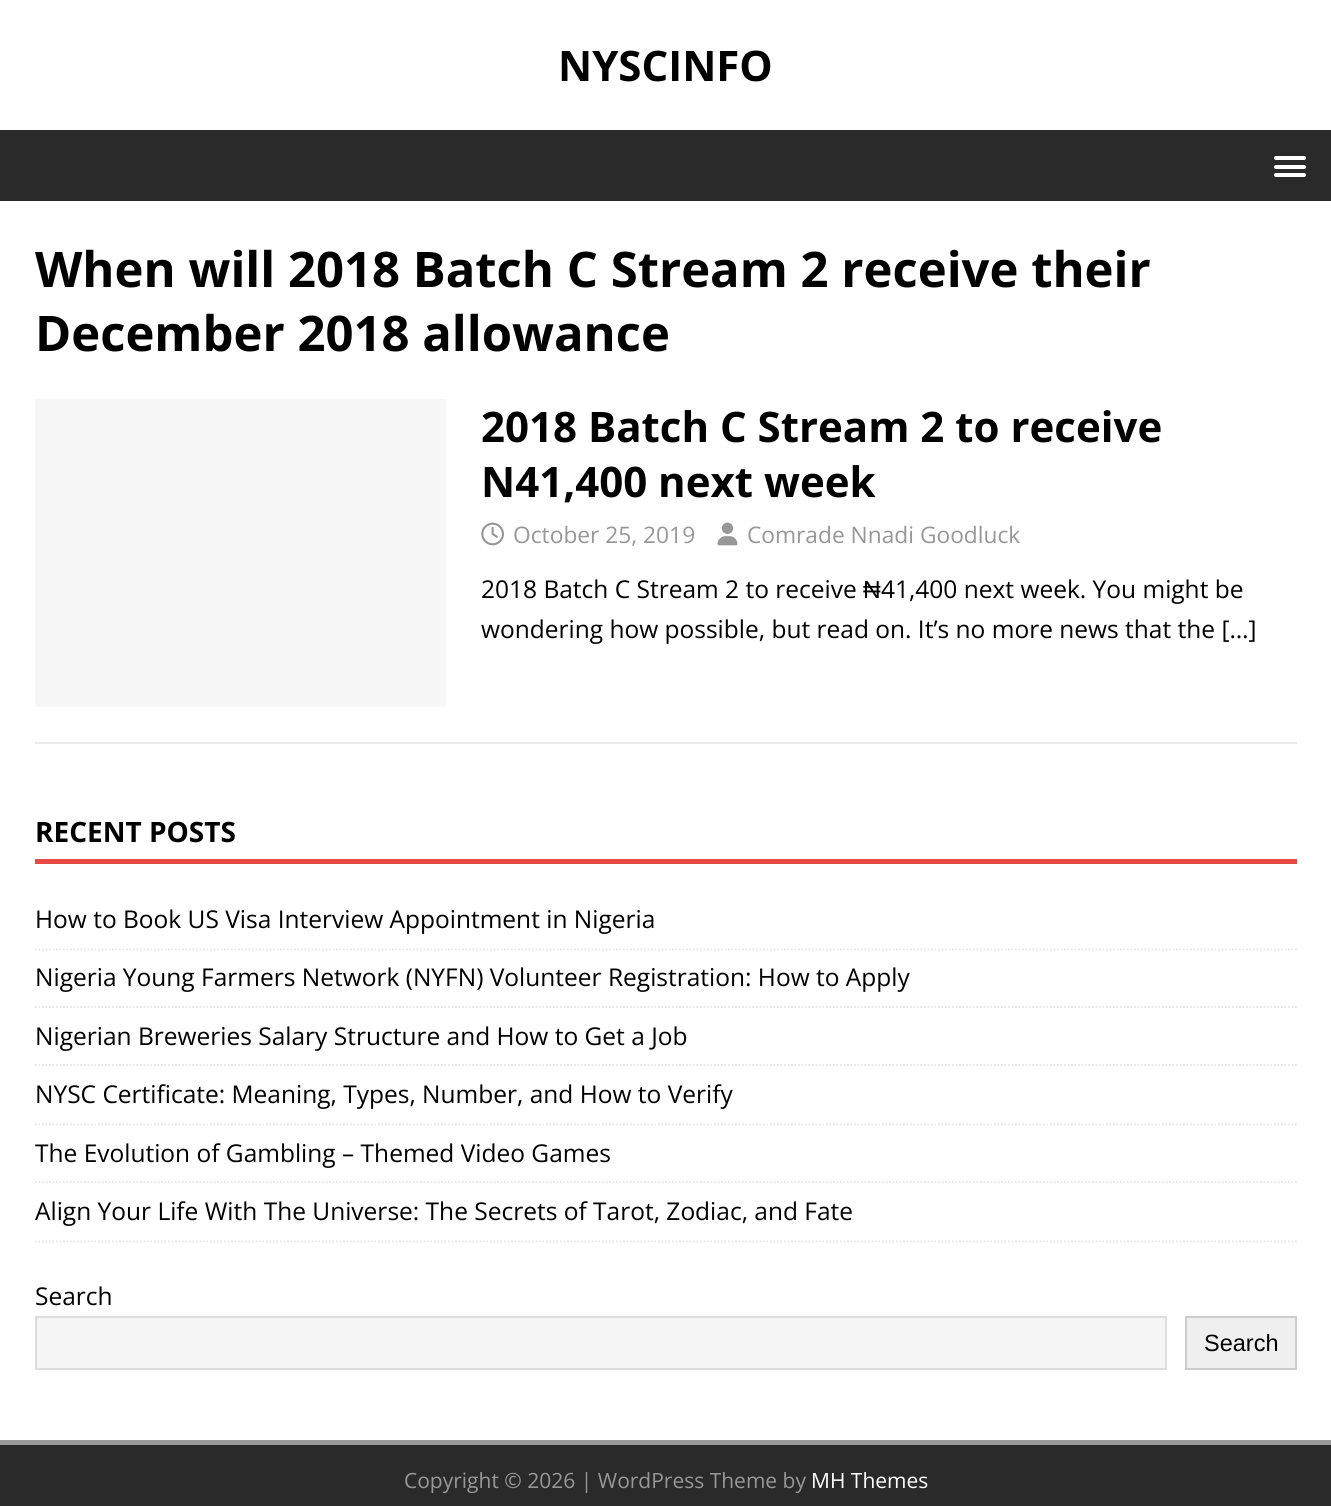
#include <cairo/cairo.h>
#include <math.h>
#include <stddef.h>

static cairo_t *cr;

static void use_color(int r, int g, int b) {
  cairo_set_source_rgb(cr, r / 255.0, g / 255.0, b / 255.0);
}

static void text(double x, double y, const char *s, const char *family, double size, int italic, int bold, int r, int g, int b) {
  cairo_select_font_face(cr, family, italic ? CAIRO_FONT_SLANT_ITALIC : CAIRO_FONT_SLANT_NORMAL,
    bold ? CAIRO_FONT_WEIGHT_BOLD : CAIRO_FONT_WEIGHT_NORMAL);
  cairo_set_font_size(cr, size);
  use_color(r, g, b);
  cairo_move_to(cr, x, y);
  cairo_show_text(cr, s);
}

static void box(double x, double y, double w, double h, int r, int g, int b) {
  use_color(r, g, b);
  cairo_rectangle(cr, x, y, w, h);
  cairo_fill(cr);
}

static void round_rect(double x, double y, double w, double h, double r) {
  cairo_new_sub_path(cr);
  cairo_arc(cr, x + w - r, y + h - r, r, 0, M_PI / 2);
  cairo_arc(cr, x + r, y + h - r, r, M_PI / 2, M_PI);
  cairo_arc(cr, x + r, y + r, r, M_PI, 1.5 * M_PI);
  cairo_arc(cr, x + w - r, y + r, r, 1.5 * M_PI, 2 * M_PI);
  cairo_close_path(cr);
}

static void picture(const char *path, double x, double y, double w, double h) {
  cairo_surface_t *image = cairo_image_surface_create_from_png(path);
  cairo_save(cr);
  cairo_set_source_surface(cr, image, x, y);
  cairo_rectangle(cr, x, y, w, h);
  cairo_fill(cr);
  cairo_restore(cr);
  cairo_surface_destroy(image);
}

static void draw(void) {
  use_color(255, 255, 255);
  cairo_paint(cr);
  box(0, 130, 1331, 71, 42, 42, 42);
  use_color(255, 255, 255);
  round_rect(1274, 156, 32, 4, 2);
  cairo_fill(cr);
  round_rect(1274, 165, 32, 4, 2);
  cairo_fill(cr);
  round_rect(1274, 173, 32, 4, 2);
  cairo_fill(cr);
  box(35, 742, 1262, 2, 235, 235, 235);
  box(35, 399, 411, 308, 247, 247, 247);
  picture("img_01.png", 481, 522, 23, 24);
  picture("img_02.png", 717, 522, 21, 24);
  box(35, 859, 1262, 5, 230, 73, 70);
  cairo_new_path(cr);
  cairo_move_to(cr, 35, 949.5);
  cairo_line_to(cr, 1297, 949.5);
  use_color(229, 229, 229);
  cairo_set_line_width(cr, 1.8);
  cairo_set_dash(cr, (double[]){1.75, 1.75}, 2, 0);
  cairo_stroke(cr);
  cairo_new_path(cr);
  cairo_move_to(cr, 35, 1007);
  cairo_line_to(cr, 1297, 1007);
  cairo_stroke(cr);
  cairo_new_path(cr);
  cairo_move_to(cr, 35, 1065);
  cairo_line_to(cr, 1297, 1065);
  cairo_stroke(cr);
  cairo_new_path(cr);
  cairo_move_to(cr, 35, 1124.5);
  cairo_line_to(cr, 1297, 1124.5);
  cairo_stroke(cr);
  cairo_new_path(cr);
  cairo_move_to(cr, 35, 1182);
  cairo_line_to(cr, 1297, 1182);
  cairo_stroke(cr);
  cairo_new_path(cr);
  cairo_move_to(cr, 35, 1241.5);
  cairo_line_to(cr, 1297, 1241.5);
  cairo_stroke(cr);
  use_color(245, 245, 245);
  cairo_rectangle(cr, 36, 1317, 1130, 52);
  cairo_fill_preserve(cr);
  use_color(221, 221, 221);
  cairo_set_line_width(cr, 2);
  cairo_set_dash(cr, NULL, 0, 0);
  cairo_stroke(cr);
  use_color(239, 239, 239);
  cairo_rectangle(cr, 1186, 1317, 110, 52);
  cairo_fill_preserve(cr);
  use_color(204, 204, 204);
  cairo_stroke(cr);
  box(0, 1445, 1331, 61, 42, 42, 42);
  box(0, 1440, 1331, 5, 153, 153, 153);
  text(558, 81, "NYSCINFO", "Open Sans", 42, 0, 1, 0, 0, 0);
  text(35, 287, "When will 2018 Batch C Stream 2 receive their", "Open Sans", 49, 0, 1, 0, 0, 0);
  text(35, 351, "December 2018 allowance", "Open Sans", 49, 0, 1, 0, 0, 0);
  text(481, 442, "2018 Batch C Stream 2 to receive", "Open Sans", 42, 0, 1, 0, 0, 0);
  text(481, 497, "N41,400 next week", "Open Sans", 42, 0, 1, 0, 0, 0);
  text(513, 543, "October 25, 2019", "Open Sans", 22.75, 0, 0, 151, 151, 151);
  text(747, 543, "Comrade Nnadi Goodluck", "Open Sans", 22.75, 0, 0, 151, 151, 151);
  text(481, 598, "2018 Batch C Stream 2 to receive", "Open Sans", 24.5, 0, 0, 0, 0, 0);
  text(863, 598, "₦", "Liberation Sans", 24.5, 0, 0, 0, 0, 0);
  text(881, 598, "41,400 next week. You might be", "Open Sans", 24.5, 0, 0, 0, 0, 0);
  text(481, 638, "wondering how possible, but read on. It’s no more news that the […]", "Open Sans", 24.5, 0, 0, 0, 0, 0);
  text(35, 842, "RECENT POSTS", "Open Sans", 28, 0, 1, 0, 0, 0);
  text(35, 928, "How to Book US Visa Interview Appointment in Nigeria", "Open Sans", 24.5, 0, 0, 0, 0, 0);
  text(35, 986, "Nigeria Young Farmers Network (NYFN) Volunteer Registration: How to Apply", "Open Sans", 24.5, 0, 0, 0, 0, 0);
  text(35, 1045, "Nigerian Breweries Salary Structure and How to Get a Job", "Open Sans", 24.5, 0, 0, 0, 0, 0);
  text(35, 1103, "NYSC Certificate: Meaning, Types, Number, and How to Verify", "Open Sans", 24.5, 0, 0, 0, 0, 0);
  text(35, 1162, "The Evolution of Gambling – Themed Video Games", "Open Sans", 24.5, 0, 0, 0, 0, 0);
  text(35, 1220, "Align Your Life With The Universe: The Secrets of Tarot, Zodiac, and Fate", "Open Sans", 24.5, 0, 0, 0, 0, 0);
  text(35, 1305, "Search", "Open Sans", 24.5, 0, 0, 0, 0, 0);
  text(1204, 1351, "Search", "Liberation Sans", 23.5, 0, 0, 0, 0, 0);
  text(404, 1488, "Copyright © 2026 | WordPress Theme by", "Open Sans", 21, 0, 0, 151, 151, 151);
  text(811, 1488, "MH Themes", "Open Sans", 21, 0, 0, 255, 255, 255);
}

int main(void) {
  cairo_surface_t *surface = cairo_image_surface_create(CAIRO_FORMAT_RGB24, 1331, 1506);
  cr = cairo_create(surface);
  cairo_font_options_t *options = cairo_font_options_create();
  cairo_font_options_set_hint_metrics(options, CAIRO_HINT_METRICS_OFF);
  cairo_font_options_set_hint_style(options, CAIRO_HINT_STYLE_NONE);
  cairo_set_font_options(cr, options);
  cairo_set_miter_limit(cr, 4);
  draw();
  cairo_surface_write_to_png(surface, "out.png");
  cairo_font_options_destroy(options);
  cairo_destroy(cr);
  cairo_surface_destroy(surface);
  return 0;
}
